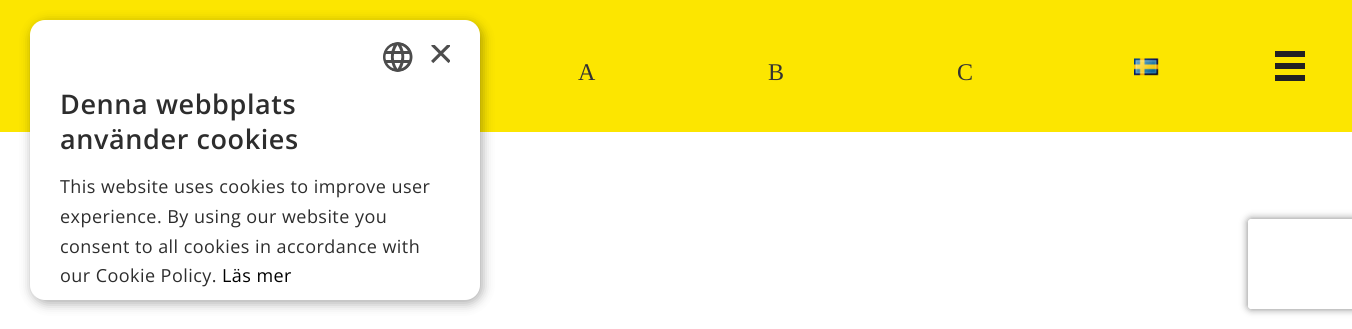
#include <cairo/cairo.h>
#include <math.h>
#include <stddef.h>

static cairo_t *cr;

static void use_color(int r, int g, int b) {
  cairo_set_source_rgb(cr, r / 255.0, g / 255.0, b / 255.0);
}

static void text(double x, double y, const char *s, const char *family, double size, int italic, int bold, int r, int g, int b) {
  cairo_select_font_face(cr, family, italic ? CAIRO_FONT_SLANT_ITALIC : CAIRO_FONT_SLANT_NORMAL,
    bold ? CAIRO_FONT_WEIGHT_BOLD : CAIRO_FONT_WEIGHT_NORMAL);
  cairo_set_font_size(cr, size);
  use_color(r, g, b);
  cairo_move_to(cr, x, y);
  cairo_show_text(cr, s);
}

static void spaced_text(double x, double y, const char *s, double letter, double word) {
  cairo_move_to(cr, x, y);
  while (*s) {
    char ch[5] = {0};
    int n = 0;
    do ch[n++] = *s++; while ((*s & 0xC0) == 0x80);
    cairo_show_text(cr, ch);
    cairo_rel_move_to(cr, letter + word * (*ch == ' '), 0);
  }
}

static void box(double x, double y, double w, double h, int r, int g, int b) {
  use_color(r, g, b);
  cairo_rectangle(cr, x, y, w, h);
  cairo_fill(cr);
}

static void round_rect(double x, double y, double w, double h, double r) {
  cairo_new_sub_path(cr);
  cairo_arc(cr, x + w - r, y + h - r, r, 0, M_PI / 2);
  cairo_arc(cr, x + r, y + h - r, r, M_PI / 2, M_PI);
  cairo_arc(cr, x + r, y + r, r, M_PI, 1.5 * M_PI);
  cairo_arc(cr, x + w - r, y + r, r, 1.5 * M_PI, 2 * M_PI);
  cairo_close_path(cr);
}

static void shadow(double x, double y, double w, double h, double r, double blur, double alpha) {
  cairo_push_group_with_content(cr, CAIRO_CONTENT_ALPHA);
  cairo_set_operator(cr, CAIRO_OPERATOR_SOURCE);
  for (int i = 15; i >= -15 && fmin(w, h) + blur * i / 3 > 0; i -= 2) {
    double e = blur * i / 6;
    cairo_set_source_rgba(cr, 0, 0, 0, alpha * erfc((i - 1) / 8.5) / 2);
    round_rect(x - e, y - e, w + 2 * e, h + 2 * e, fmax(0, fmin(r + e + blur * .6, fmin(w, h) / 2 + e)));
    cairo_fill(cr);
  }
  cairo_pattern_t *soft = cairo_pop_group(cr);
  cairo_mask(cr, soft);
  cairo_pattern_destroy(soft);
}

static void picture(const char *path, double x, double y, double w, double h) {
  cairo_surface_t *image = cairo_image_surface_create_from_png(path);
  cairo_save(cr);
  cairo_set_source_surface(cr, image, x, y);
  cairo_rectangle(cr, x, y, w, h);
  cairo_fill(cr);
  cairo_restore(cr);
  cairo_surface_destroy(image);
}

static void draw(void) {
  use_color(255, 255, 255);
  cairo_paint(cr);
  box(0, 0, 1352, 132, 252, 230, 0);
  use_color(0, 0, 0);
  shadow(32, 23, 450, 280, 15, 6, 0.35);
  use_color(255, 255, 255);
  round_rect(30, 20, 450, 280, 15);
  cairo_fill(cr);
  picture("img_01.png", 383, 42, 30, 30);
  picture("img_02.png", 1134, 58, 25, 18);
  box(1275, 63, 30, 6, 34, 34, 34);
  box(1275, 51, 30, 6, 34, 34, 34);
  box(1275, 75, 30, 6, 34, 34, 34);
  cairo_save(cr);
  cairo_set_fill_rule(cr, CAIRO_FILL_RULE_EVEN_ODD);
  cairo_new_path(cr);
  cairo_move_to(cr, 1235, 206);
  cairo_line_to(cr, 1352, 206);
  cairo_line_to(cr, 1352, 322);
  cairo_line_to(cr, 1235, 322);
  cairo_close_path(cr);
  cairo_move_to(cr, 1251, 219);
  cairo_line_to(cr, 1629, 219);
  cairo_curve_to(cr, 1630.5, 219, 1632, 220.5, 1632, 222);
  cairo_line_to(cr, 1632, 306);
  cairo_curve_to(cr, 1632, 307.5, 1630.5, 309, 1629, 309);
  cairo_line_to(cr, 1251, 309);
  cairo_curve_to(cr, 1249.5, 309, 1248, 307.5, 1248, 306);
  cairo_line_to(cr, 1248, 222);
  cairo_curve_to(cr, 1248, 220.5, 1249.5, 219, 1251, 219);
  cairo_close_path(cr);
  cairo_clip(cr);
  use_color(128, 128, 128);
  shadow(1248, 219, 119, 90, 3, 4, 1);
  cairo_restore(cr);
  cairo_save(cr);
  cairo_rectangle(cr, 428, 45, 22, 23);
  cairo_clip(cr);
  text(428, 68, "×", "Liberation Sans", 44, 0, 0, 77, 77, 77);
  cairo_restore(cr);
  cairo_select_font_face(cr, "Open Sans SemiBold", CAIRO_FONT_SLANT_NORMAL, CAIRO_FONT_WEIGHT_NORMAL);
  cairo_set_font_size(cr, 27);
  use_color(45, 45, 45);
  spaced_text(60, 114, "Denna webbplats", 0.6, 0);
  spaced_text(60, 149, "använder cookies", 0.6, 0);
  cairo_select_font_face(cr, "Open Sans", CAIRO_FONT_SLANT_NORMAL, CAIRO_FONT_WEIGHT_NORMAL);
  cairo_set_font_size(cr, 18);
  spaced_text(60, 193, "This website uses cookies to improve user", 0.45, 0);
  spaced_text(60, 223, "experience. By using our website you", 0.45, 0);
  spaced_text(60, 253, "consent to all cookies in accordance with", 0.45, 0);
  spaced_text(60, 282, "our Cookie Policy.", 0.45, 0);
  use_color(0, 0, 0);
  spaced_text(222, 282, "Läs mer", 0.45, 0);
  text(578, 80, "A", "Liberation Serif", 24, 0, 0, 51, 51, 51);
  text(768, 80, "B", "Liberation Serif", 24, 0, 0, 51, 51, 51);
  text(957, 80, "C", "Liberation Serif", 24, 0, 0, 51, 51, 51);
}

int main(void) {
  cairo_surface_t *surface = cairo_image_surface_create(CAIRO_FORMAT_RGB24, 1352, 329);
  cr = cairo_create(surface);
  cairo_font_options_t *options = cairo_font_options_create();
  cairo_font_options_set_hint_metrics(options, CAIRO_HINT_METRICS_OFF);
  cairo_font_options_set_hint_style(options, CAIRO_HINT_STYLE_NONE);
  cairo_set_font_options(cr, options);
  cairo_set_miter_limit(cr, 4);
  draw();
  cairo_surface_write_to_png(surface, "out.png");
  cairo_font_options_destroy(options);
  cairo_destroy(cr);
  cairo_surface_destroy(surface);
  return 0;
}
